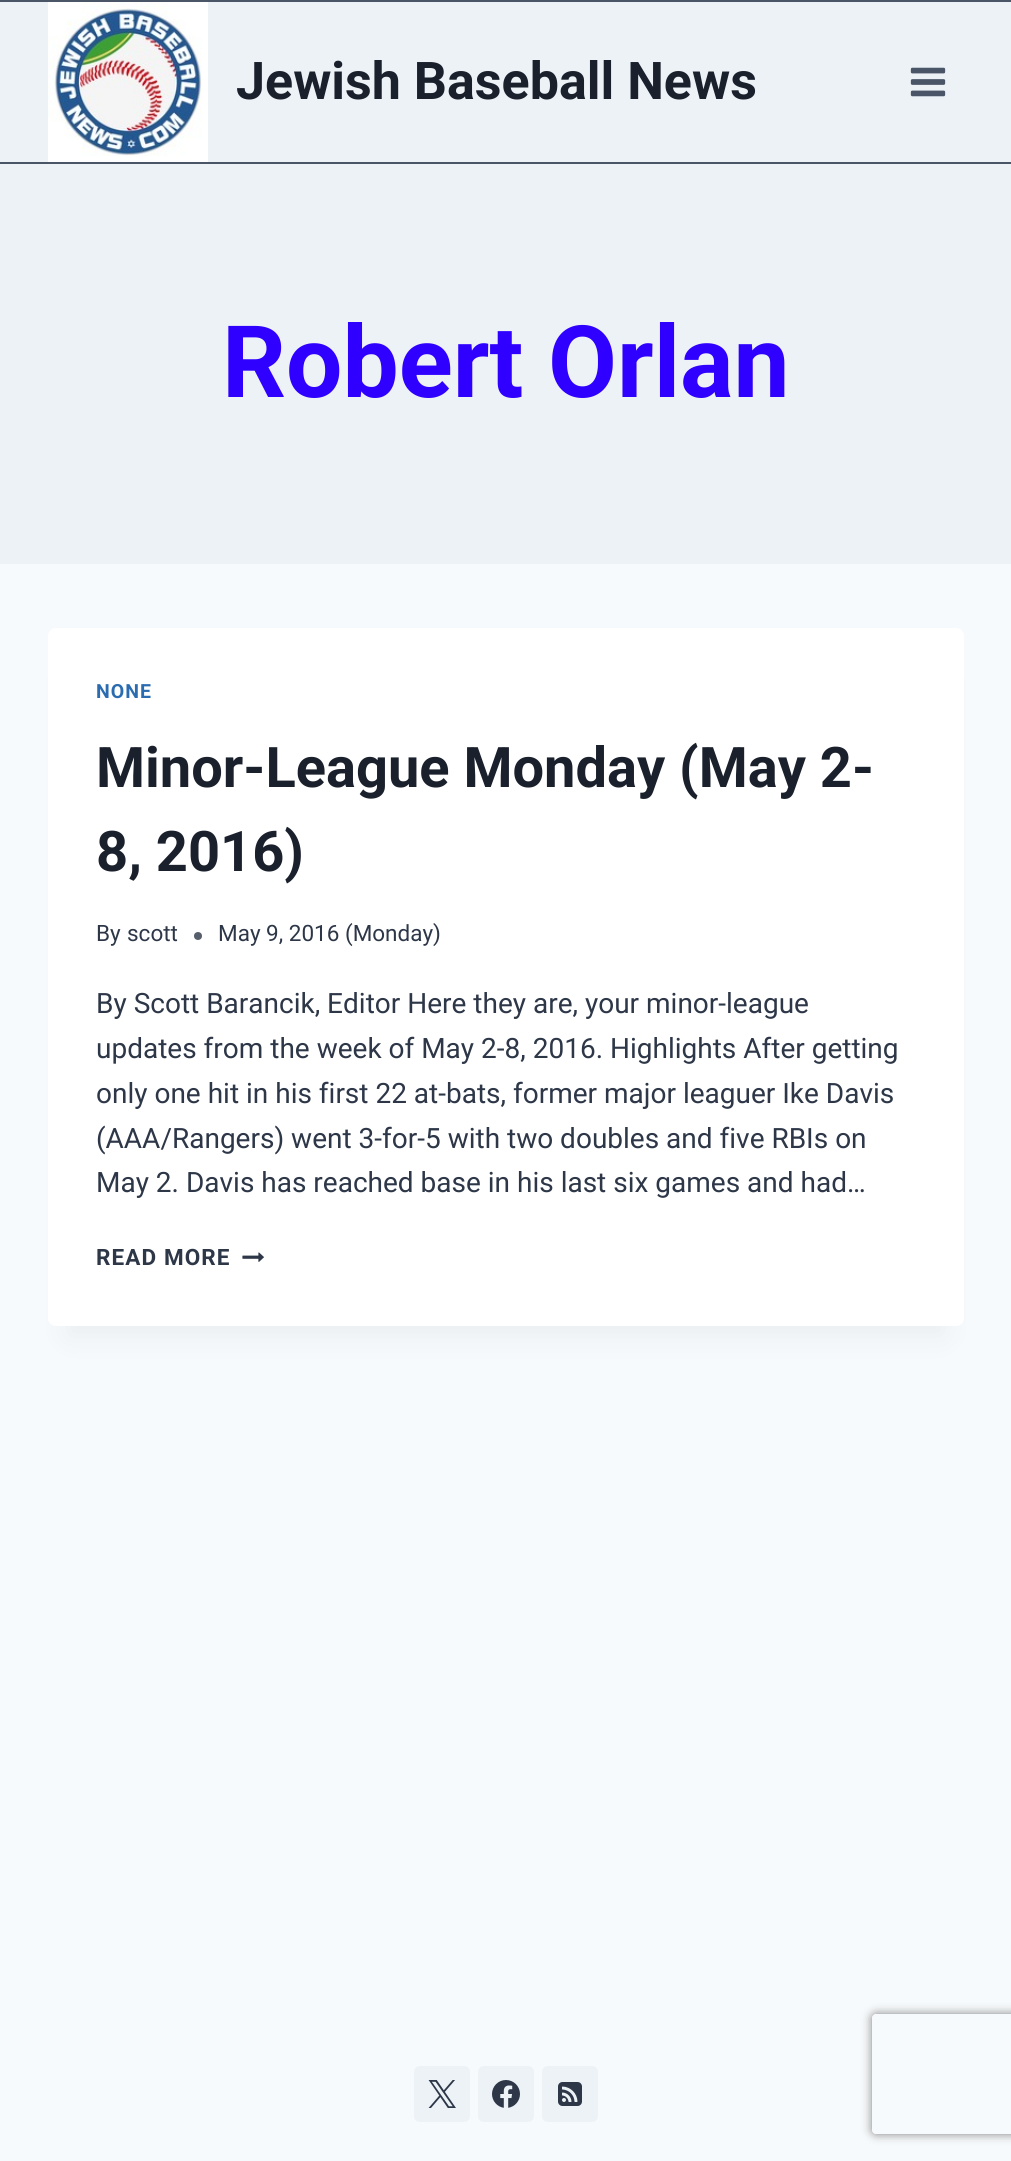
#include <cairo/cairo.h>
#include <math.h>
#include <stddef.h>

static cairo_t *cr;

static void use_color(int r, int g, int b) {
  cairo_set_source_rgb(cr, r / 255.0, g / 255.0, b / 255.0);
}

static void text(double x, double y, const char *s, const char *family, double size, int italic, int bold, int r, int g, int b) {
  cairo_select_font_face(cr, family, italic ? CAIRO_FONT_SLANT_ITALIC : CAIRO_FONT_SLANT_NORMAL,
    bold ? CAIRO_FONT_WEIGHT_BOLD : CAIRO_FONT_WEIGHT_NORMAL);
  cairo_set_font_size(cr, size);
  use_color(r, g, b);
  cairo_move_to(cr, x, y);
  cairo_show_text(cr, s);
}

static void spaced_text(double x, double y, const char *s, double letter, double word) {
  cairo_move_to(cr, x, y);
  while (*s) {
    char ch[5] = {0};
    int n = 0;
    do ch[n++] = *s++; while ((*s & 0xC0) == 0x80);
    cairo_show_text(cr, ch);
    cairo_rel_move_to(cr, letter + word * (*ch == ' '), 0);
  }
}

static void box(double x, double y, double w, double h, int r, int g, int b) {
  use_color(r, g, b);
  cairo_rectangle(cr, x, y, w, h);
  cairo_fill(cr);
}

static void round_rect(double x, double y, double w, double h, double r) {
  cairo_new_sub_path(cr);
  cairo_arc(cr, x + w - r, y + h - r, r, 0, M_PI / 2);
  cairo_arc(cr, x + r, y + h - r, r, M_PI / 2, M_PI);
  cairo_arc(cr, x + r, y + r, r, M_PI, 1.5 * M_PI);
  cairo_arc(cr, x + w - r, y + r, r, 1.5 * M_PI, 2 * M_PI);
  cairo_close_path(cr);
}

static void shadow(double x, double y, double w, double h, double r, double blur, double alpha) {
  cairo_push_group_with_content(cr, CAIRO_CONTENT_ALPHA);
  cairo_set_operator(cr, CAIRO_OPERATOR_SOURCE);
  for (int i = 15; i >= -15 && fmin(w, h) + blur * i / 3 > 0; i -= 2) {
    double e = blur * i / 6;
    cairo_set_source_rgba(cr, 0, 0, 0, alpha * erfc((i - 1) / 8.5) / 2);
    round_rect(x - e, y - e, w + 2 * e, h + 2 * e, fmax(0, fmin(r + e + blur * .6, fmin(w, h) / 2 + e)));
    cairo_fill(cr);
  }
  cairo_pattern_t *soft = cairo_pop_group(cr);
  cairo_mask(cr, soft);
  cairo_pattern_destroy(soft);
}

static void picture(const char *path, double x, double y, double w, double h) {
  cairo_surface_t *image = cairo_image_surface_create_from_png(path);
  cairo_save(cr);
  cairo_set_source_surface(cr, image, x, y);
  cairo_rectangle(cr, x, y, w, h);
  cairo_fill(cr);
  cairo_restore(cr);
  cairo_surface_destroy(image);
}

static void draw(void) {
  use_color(247, 250, 252);
  cairo_paint(cr);
  box(0, 2, 1011, 160, 237, 242, 247);
  box(0, 0, 1011, 2, 74, 85, 104);
  box(0, 162, 1011, 2, 74, 85, 104);
  picture("img_01.png", 48, 2, 160, 160);
  picture("img_02.png", 910, 67, 36, 30);
  box(0, 164, 1011, 400, 237, 242, 247);
  use_color(0, 0, 0);
  shadow(68, 678, 876, 658, 0, 15, 0.05);
  use_color(255, 255, 255);
  round_rect(48, 628, 916, 698, 8);
  cairo_fill(cr);
  use_color(87, 95, 109);
  cairo_arc(cr, 198, 936, 4, 0, 2 * M_PI);
  cairo_fill(cr);
  picture("img_03.png", 242, 1252, 22, 10);
  use_color(237, 242, 247);
  round_rect(414, 2066, 56, 56, 6);
  cairo_fill(cr);
  picture("img_04.png", 428, 2080, 28, 28);
  round_rect(478, 2066, 56, 56, 6);
  cairo_fill(cr);
  picture("img_05.png", 492, 2080, 28, 28);
  round_rect(542, 2066, 56, 56, 6);
  cairo_fill(cr);
  picture("img_06.png", 558, 2082, 24, 24);
  cairo_save(cr);
  cairo_set_fill_rule(cr, CAIRO_FILL_RULE_EVEN_ODD);
  cairo_new_path(cr);
  cairo_move_to(cr, 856, 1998);
  cairo_line_to(cr, 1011, 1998);
  cairo_line_to(cr, 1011, 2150);
  cairo_line_to(cr, 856, 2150);
  cairo_close_path(cr);
  cairo_move_to(cr, 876, 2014);
  cairo_line_to(cr, 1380, 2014);
  cairo_curve_to(cr, 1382, 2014, 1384, 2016, 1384, 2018);
  cairo_line_to(cr, 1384, 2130);
  cairo_curve_to(cr, 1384, 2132, 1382, 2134, 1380, 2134);
  cairo_line_to(cr, 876, 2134);
  cairo_curve_to(cr, 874, 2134, 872, 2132, 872, 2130);
  cairo_line_to(cr, 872, 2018);
  cairo_curve_to(cr, 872, 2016, 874, 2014, 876, 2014);
  cairo_close_path(cr);
  cairo_clip(cr);
  use_color(128, 128, 128);
  shadow(872, 2014, 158, 120, 4, 5, 1);
  cairo_restore(cr);
  text(236, 99, "Jewish Baseball News", "Roboto", 52, 0, 1, 26, 32, 44);
  text(222, 397, "Robert Orlan", "Roboto", 100, 0, 1, 47, 0, 255);
  cairo_set_font_size(cr, 19.5);
  use_color(43, 108, 176);
  spaced_text(96, 698, "NONE", 1, 0);
  text(96, 787, "Minor-League Monday (May 2-", "Roboto", 56, 0, 1, 26, 32, 44);
  text(96, 871, "8, 2016)", "Roboto", 56, 0, 1, 26, 32, 44);
  text(96, 941, "By", "Roboto", 22.5, 0, 0, 45, 55, 72);
  text(127, 941, "scott", "Roboto", 22.5, 0, 0, 45, 55, 72);
  text(218, 941, "May 9, 2016 (Monday)", "Roboto", 22.5, 0, 0, 45, 55, 72);
  text(96, 1013, "By Scott Barancik, Editor Here they are, your minor-league", "Roboto", 28, 0, 0, 45, 55, 72);
  text(96, 1058, "updates from the week of May 2-8, 2016. Highlights After getting", "Roboto", 28, 0, 0, 45, 55, 72);
  text(96, 1103, "only one hit in his first 22 at-bats, former major leaguer Ike Davis", "Roboto", 28, 0, 0, 45, 55, 72);
  text(96, 1148, "(AAA/Rangers) went 3-for-5 with two doubles and five RBIs on", "Roboto", 28, 0, 0, 45, 55, 72);
  text(96, 1192, "May 2. Davis has reached base in his last six games and had…", "Roboto", 28, 0, 0, 45, 55, 72);
  cairo_select_font_face(cr, "Roboto", CAIRO_FONT_SLANT_NORMAL, CAIRO_FONT_WEIGHT_BOLD);
  cairo_set_font_size(cr, 22.5);
  spaced_text(96, 1265, "READ MORE", 1.1, 0);
}

int main(void) {
  cairo_surface_t *surface = cairo_image_surface_create(CAIRO_FORMAT_RGB24, 1011, 2161);
  cr = cairo_create(surface);
  cairo_font_options_t *options = cairo_font_options_create();
  cairo_font_options_set_hint_metrics(options, CAIRO_HINT_METRICS_OFF);
  cairo_font_options_set_hint_style(options, CAIRO_HINT_STYLE_NONE);
  cairo_set_font_options(cr, options);
  cairo_set_miter_limit(cr, 4);
  draw();
  cairo_surface_write_to_png(surface, "out.png");
  cairo_font_options_destroy(options);
  cairo_destroy(cr);
  cairo_surface_destroy(surface);
  return 0;
}
